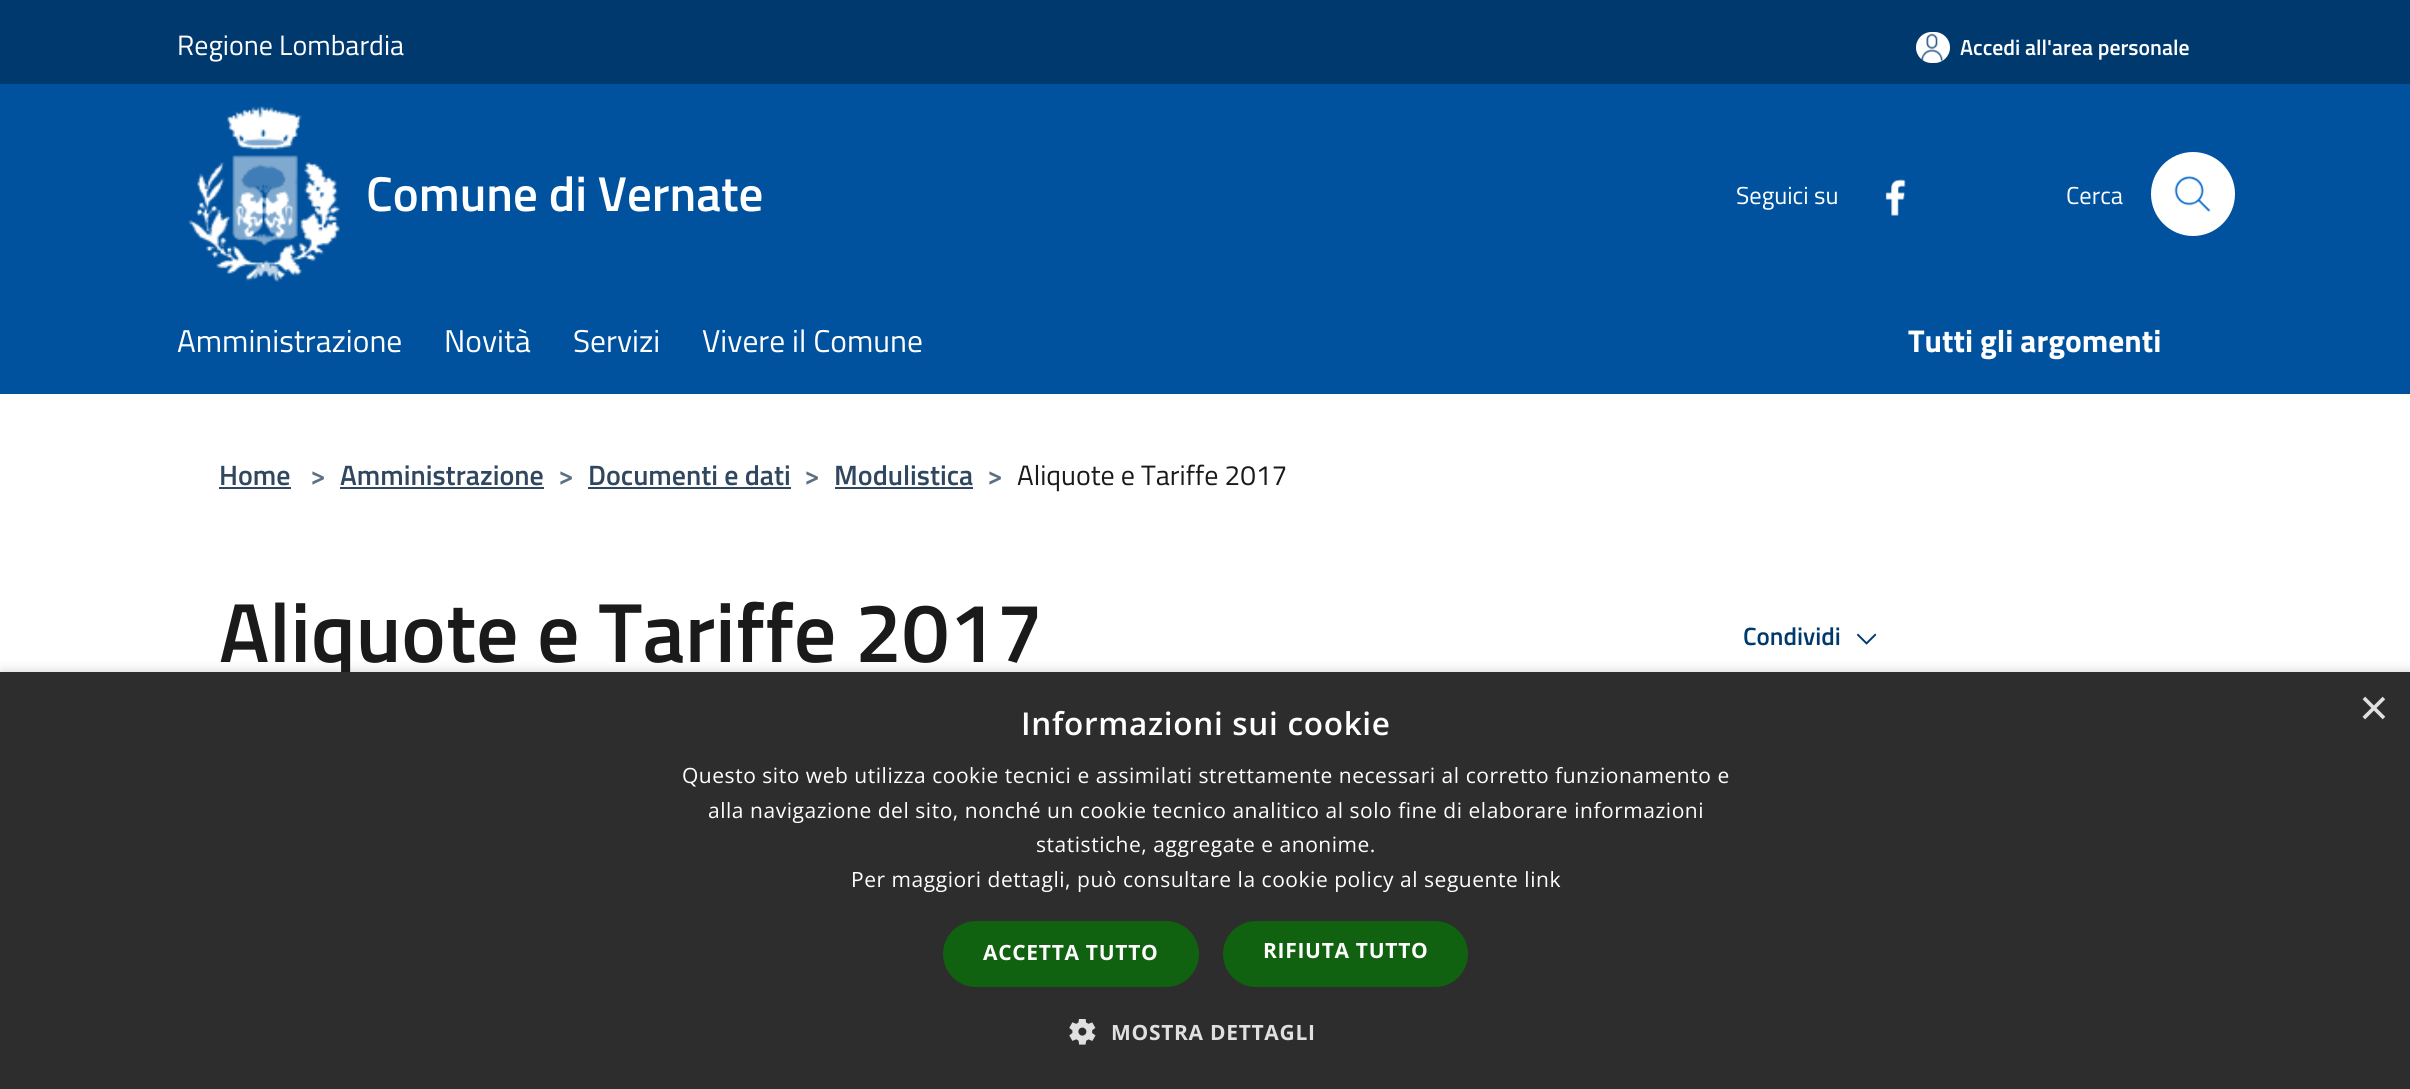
#include <cairo/cairo.h>
#include <math.h>
#include <stddef.h>

static cairo_t *cr;

static void use_color(int r, int g, int b) {
  cairo_set_source_rgb(cr, r / 255.0, g / 255.0, b / 255.0);
}

static void text(double x, double y, const char *s, const char *family, double size, int italic, int bold, int r, int g, int b) {
  cairo_select_font_face(cr, family, italic ? CAIRO_FONT_SLANT_ITALIC : CAIRO_FONT_SLANT_NORMAL,
    bold ? CAIRO_FONT_WEIGHT_BOLD : CAIRO_FONT_WEIGHT_NORMAL);
  cairo_set_font_size(cr, size);
  use_color(r, g, b);
  cairo_move_to(cr, x, y);
  cairo_show_text(cr, s);
}

static void spaced_text(double x, double y, const char *s, double letter, double word) {
  cairo_move_to(cr, x, y);
  while (*s) {
    char ch[5] = {0};
    int n = 0;
    do ch[n++] = *s++; while ((*s & 0xC0) == 0x80);
    cairo_show_text(cr, ch);
    cairo_rel_move_to(cr, letter + word * (*ch == ' '), 0);
  }
}

static void box(double x, double y, double w, double h, int r, int g, int b) {
  use_color(r, g, b);
  cairo_rectangle(cr, x, y, w, h);
  cairo_fill(cr);
}

static void round_rect(double x, double y, double w, double h, double r) {
  cairo_new_sub_path(cr);
  cairo_arc(cr, x + w - r, y + h - r, r, 0, M_PI / 2);
  cairo_arc(cr, x + r, y + h - r, r, M_PI / 2, M_PI);
  cairo_arc(cr, x + r, y + r, r, M_PI, 1.5 * M_PI);
  cairo_arc(cr, x + w - r, y + r, r, 1.5 * M_PI, 2 * M_PI);
  cairo_close_path(cr);
}

static void shadow(double x, double y, double w, double h, double r, double blur, double alpha) {
  cairo_push_group_with_content(cr, CAIRO_CONTENT_ALPHA);
  cairo_set_operator(cr, CAIRO_OPERATOR_SOURCE);
  for (int i = 15; i >= -15 && fmin(w, h) + blur * i / 3 > 0; i -= 2) {
    double e = blur * i / 6;
    cairo_set_source_rgba(cr, 0, 0, 0, alpha * erfc((i - 1) / 8.5) / 2);
    round_rect(x - e, y - e, w + 2 * e, h + 2 * e, fmax(0, fmin(r + e + blur * .6, fmin(w, h) / 2 + e)));
    cairo_fill(cr);
  }
  cairo_pattern_t *soft = cairo_pop_group(cr);
  cairo_mask(cr, soft);
  cairo_pattern_destroy(soft);
}

static void picture(const char *path, double x, double y, double w, double h) {
  cairo_surface_t *image = cairo_image_surface_create_from_png(path);
  cairo_save(cr);
  cairo_set_source_surface(cr, image, x, y);
  cairo_rectangle(cr, x, y, w, h);
  cairo_fill(cr);
  cairo_restore(cr);
  cairo_surface_destroy(image);
}

static void draw(void) {
  use_color(255, 255, 255);
  cairo_paint(cr);
  box(0, 0, 2410, 84, 0, 57, 110);
  use_color(255, 255, 255);
  round_rect(1916, 32, 34, 31, 15.5);
  cairo_fill(cr);
  picture("img_01.png", 1921, 33, 23, 28);
  box(0, 84, 2410, 310, 0, 82, 158);
  picture("img_02.png", 188, 106, 152, 176);
  picture("img_03.png", 1885, 179, 21, 37);
  use_color(255, 255, 255);
  cairo_arc(cr, 2193, 194, 42, 0, 2 * M_PI);
  cairo_fill(cr);
  picture("img_04.png", 2174, 176, 37, 36);
  box(219, 487, 72, 2, 48, 71, 95);
  box(340, 487, 204, 2, 48, 71, 95);
  box(588, 487, 203, 2, 48, 71, 95);
  box(835, 487, 138, 2, 48, 71, 95);
  picture("img_05.png", 1856, 633, 21, 12);
  use_color(0, 0, 0);
  shadow(2, 676, 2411, 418, 0, 7, 0.35);
  text(177, 55, "Regione Lombardia", "Titillium Web", 28, 0, 0, 255, 255, 255);
  text(1960, 55, "Accedi all'area personale", "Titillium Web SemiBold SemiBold", 21.75, 0, 0, 255, 255, 255);
  text(366, 211, "Comune di Vernate", "Titillium Web SemiBold SemiBold", 49, 0, 0, 255, 255, 255);
  text(1736, 204, "Seguici su", "Titillium Web", 24.5, 0, 0, 255, 255, 255);
  text(2066, 204, "Cerca", "Titillium Web", 24.5, 0, 0, 255, 255, 255);
  text(177, 352, "Amministrazione", "Titillium Web", 31.5, 0, 0, 255, 255, 255);
  text(444, 352, "Novità", "Titillium Web", 31.5, 0, 0, 255, 255, 255);
  text(573, 352, "Servizi", "Titillium Web", 31.5, 0, 0, 255, 255, 255);
  text(702, 352, "Vivere il Comune", "Titillium Web", 31.5, 0, 0, 255, 255, 255);
  text(1908, 352, "Tutti gli argomenti", "Titillium Web", 31.5, 0, 1, 255, 255, 255);
  text(219, 485, "Home", "Titillium Web SemiBold SemiBold", 28, 0, 0, 48, 71, 95);
  text(310, 485, ">", "Titillium Web SemiBold SemiBold", 28, 0, 0, 93, 112, 131);
  text(340, 485, "Amministrazione", "Titillium Web SemiBold SemiBold", 28, 0, 0, 48, 71, 95);
  text(558, 485, ">", "Titillium Web SemiBold SemiBold", 28, 0, 0, 93, 112, 131);
  text(588, 485, "Documenti e dati", "Titillium Web SemiBold SemiBold", 28, 0, 0, 48, 71, 95);
  text(804, 485, ">", "Titillium Web SemiBold SemiBold", 28, 0, 0, 93, 112, 131);
  text(834, 485, "Modulistica", "Titillium Web SemiBold SemiBold", 28, 0, 0, 48, 71, 95);
  text(987, 485, ">", "Titillium Web SemiBold SemiBold", 28, 0, 0, 93, 112, 131);
  text(1017, 485, "Aliquote e Tariffe 2017", "Titillium Web", 28, 0, 0, 26, 26, 26);
  text(219, 662, "Aliquote e Tariffe 2017", "Titillium Web SemiBold SemiBold", 84, 0, 0, 26, 26, 26);
  text(1743, 645, "Condividi", "Titillium Web SemiBold SemiBold", 25, 0, 0, 0, 57, 110);
  box(0, 672, 2410, 417, 45, 45, 45);
  cairo_select_font_face(cr, "Open Sans SemiBold", CAIRO_FONT_SLANT_NORMAL, CAIRO_FONT_WEIGHT_NORMAL);
  cairo_set_font_size(cr, 31.5);
  use_color(255, 255, 255);
  spaced_text(1021, 735, "Informazioni sui cookie", 0.7, 0);
  text(2359, 725, "×", "Liberation Sans", 51, 0, 0, 224, 224, 224);
  cairo_select_font_face(cr, "Open Sans", CAIRO_FONT_SLANT_NORMAL, CAIRO_FONT_WEIGHT_NORMAL);
  cairo_set_font_size(cr, 21);
  use_color(255, 255, 255);
  spaced_text(682, 783, "Questo sito web utilizza cookie tecnici e assimilati strettamente necessari al corretto funzionamento e", 0.53, 0);
  spaced_text(708, 818, "alla navigazione del sito, nonché un cookie tecnico analitico al solo fine di elaborare informazioni", 0.53, 0);
  spaced_text(1036, 852, "statistiche, aggregate e anonime.", 0.53, 0);
  spaced_text(851, 887, "Per maggiori dettagli, può consultare la cookie policy al seguente link", 0.53, 0);
  use_color(16, 97, 16);
  round_rect(943, 921, 256, 66, 33);
  cairo_fill(cr);
  cairo_select_font_face(cr, "Open Sans", CAIRO_FONT_SLANT_NORMAL, CAIRO_FONT_WEIGHT_BOLD);
  use_color(255, 255, 255);
  spaced_text(983, 960, "ACCETTA TUTTO", 0.7, 0);
  use_color(16, 97, 16);
  round_rect(1223, 921, 245, 66, 33);
  cairo_fill(cr);
  use_color(255, 255, 255);
  spaced_text(1263, 958, "RIFIUTA TUTTO", 0.7, 0);
  picture("img_06.png", 1069, 1019, 27, 26);
  use_color(224, 224, 224);
  spaced_text(1111, 1040, "MOSTRA DETTAGLI", 0.7, 0);
}

int main(void) {
  cairo_surface_t *surface = cairo_image_surface_create(CAIRO_FORMAT_RGB24, 2410, 1089);
  cr = cairo_create(surface);
  cairo_font_options_t *options = cairo_font_options_create();
  cairo_font_options_set_hint_metrics(options, CAIRO_HINT_METRICS_OFF);
  cairo_font_options_set_hint_style(options, CAIRO_HINT_STYLE_NONE);
  cairo_set_font_options(cr, options);
  cairo_set_miter_limit(cr, 4);
  draw();
  cairo_surface_write_to_png(surface, "out.png");
  cairo_font_options_destroy(options);
  cairo_destroy(cr);
  cairo_surface_destroy(surface);
  return 0;
}
